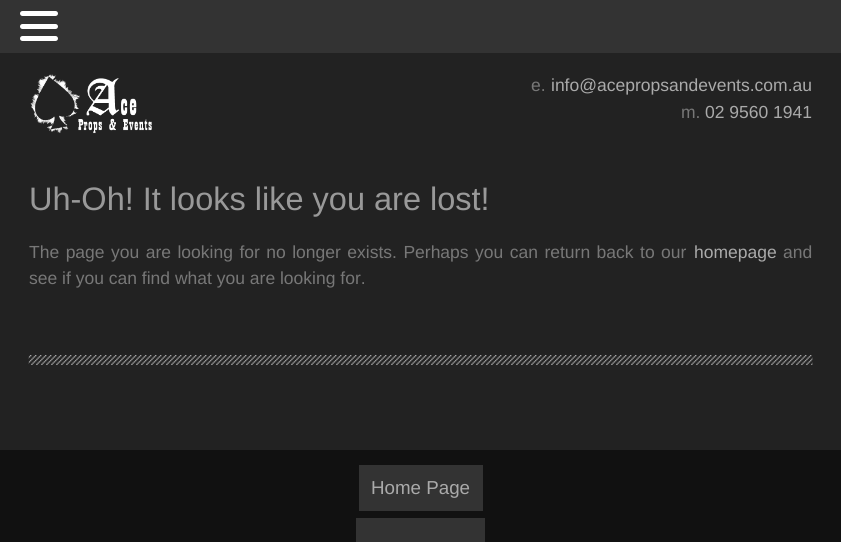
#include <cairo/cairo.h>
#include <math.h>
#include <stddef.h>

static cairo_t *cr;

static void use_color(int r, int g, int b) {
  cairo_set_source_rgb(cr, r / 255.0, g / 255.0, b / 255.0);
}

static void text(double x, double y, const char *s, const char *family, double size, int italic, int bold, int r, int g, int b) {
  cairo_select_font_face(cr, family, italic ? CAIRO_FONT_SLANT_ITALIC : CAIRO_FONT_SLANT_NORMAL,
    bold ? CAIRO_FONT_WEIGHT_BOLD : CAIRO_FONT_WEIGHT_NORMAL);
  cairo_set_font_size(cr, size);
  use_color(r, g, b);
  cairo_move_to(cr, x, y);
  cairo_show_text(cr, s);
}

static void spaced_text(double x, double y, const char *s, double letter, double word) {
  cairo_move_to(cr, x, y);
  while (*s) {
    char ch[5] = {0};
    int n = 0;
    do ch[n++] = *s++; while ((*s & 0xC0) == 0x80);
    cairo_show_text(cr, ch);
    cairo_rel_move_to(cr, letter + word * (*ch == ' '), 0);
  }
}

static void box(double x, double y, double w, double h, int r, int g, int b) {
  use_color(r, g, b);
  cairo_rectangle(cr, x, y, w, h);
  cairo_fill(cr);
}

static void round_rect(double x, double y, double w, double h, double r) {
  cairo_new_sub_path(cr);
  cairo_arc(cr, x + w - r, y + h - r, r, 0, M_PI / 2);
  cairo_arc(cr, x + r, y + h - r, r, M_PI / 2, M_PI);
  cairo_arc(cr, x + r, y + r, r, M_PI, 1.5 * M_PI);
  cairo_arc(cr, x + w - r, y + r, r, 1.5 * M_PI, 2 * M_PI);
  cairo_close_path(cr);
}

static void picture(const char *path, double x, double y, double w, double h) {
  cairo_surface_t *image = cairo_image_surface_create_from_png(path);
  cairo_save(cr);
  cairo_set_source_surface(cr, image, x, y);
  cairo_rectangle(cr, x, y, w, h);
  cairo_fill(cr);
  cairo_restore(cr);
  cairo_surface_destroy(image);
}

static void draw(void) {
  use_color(34, 34, 34);
  cairo_paint(cr);
  box(0, 0, 841, 53, 51, 51, 51);
  use_color(255, 255, 255);
  round_rect(20, 11, 38, 5, 2.5);
  cairo_fill(cr);
  round_rect(20, 24, 38, 5, 2.5);
  cairo_fill(cr);
  round_rect(20, 36, 38, 5, 2.5);
  cairo_fill(cr);
  picture("img_01.png", 30, 74, 122, 60);
  picture("img_02.png", 28, 355, 785, 10);
  box(0, 450, 841, 92, 17, 17, 17);
  box(359, 465, 124, 46, 51, 51, 51);
  box(356, 518, 129, 24, 51, 51, 51);
  text(531, 91, "e.", "Liberation Sans", 17.5, 0, 0, 119, 119, 119);
  text(551, 91, "info@acepropsandevents.com.au", "Liberation Sans", 17.5, 0, 0, 170, 170, 170);
  text(681, 118, "m.", "Liberation Sans", 17.5, 0, 0, 119, 119, 119);
  text(705, 118, "02 9560 1941", "Liberation Sans", 17.5, 0, 0, 170, 170, 170);
  text(29, 210, "Uh-Oh! It looks like you are lost!", "Liberation Sans", 32.5, 0, 0, 153, 153, 153);
  cairo_set_font_size(cr, 17.5);
  use_color(119, 119, 119);
  spaced_text(29, 258, "The page you are looking for no longer exists. Perhaps you can return back to our", 0, 1.6);
  text(694, 258, "homepage", "Liberation Sans", 17.5, 0, 0, 170, 170, 170);
  text(783, 258, "and", "Liberation Sans", 17.5, 0, 0, 119, 119, 119);
  text(29, 284, "see if you can find what you are looking for.", "Liberation Sans", 17.5, 0, 0, 119, 119, 119);
  text(371, 494, "Home Page", "Liberation Sans", 18.75, 0, 0, 170, 170, 170);
}

int main(void) {
  cairo_surface_t *surface = cairo_image_surface_create(CAIRO_FORMAT_RGB24, 841, 542);
  cr = cairo_create(surface);
  cairo_font_options_t *options = cairo_font_options_create();
  cairo_font_options_set_hint_metrics(options, CAIRO_HINT_METRICS_OFF);
  cairo_font_options_set_hint_style(options, CAIRO_HINT_STYLE_NONE);
  cairo_set_font_options(cr, options);
  cairo_set_miter_limit(cr, 4);
  draw();
  cairo_surface_write_to_png(surface, "out.png");
  cairo_font_options_destroy(options);
  cairo_destroy(cr);
  cairo_surface_destroy(surface);
  return 0;
}
